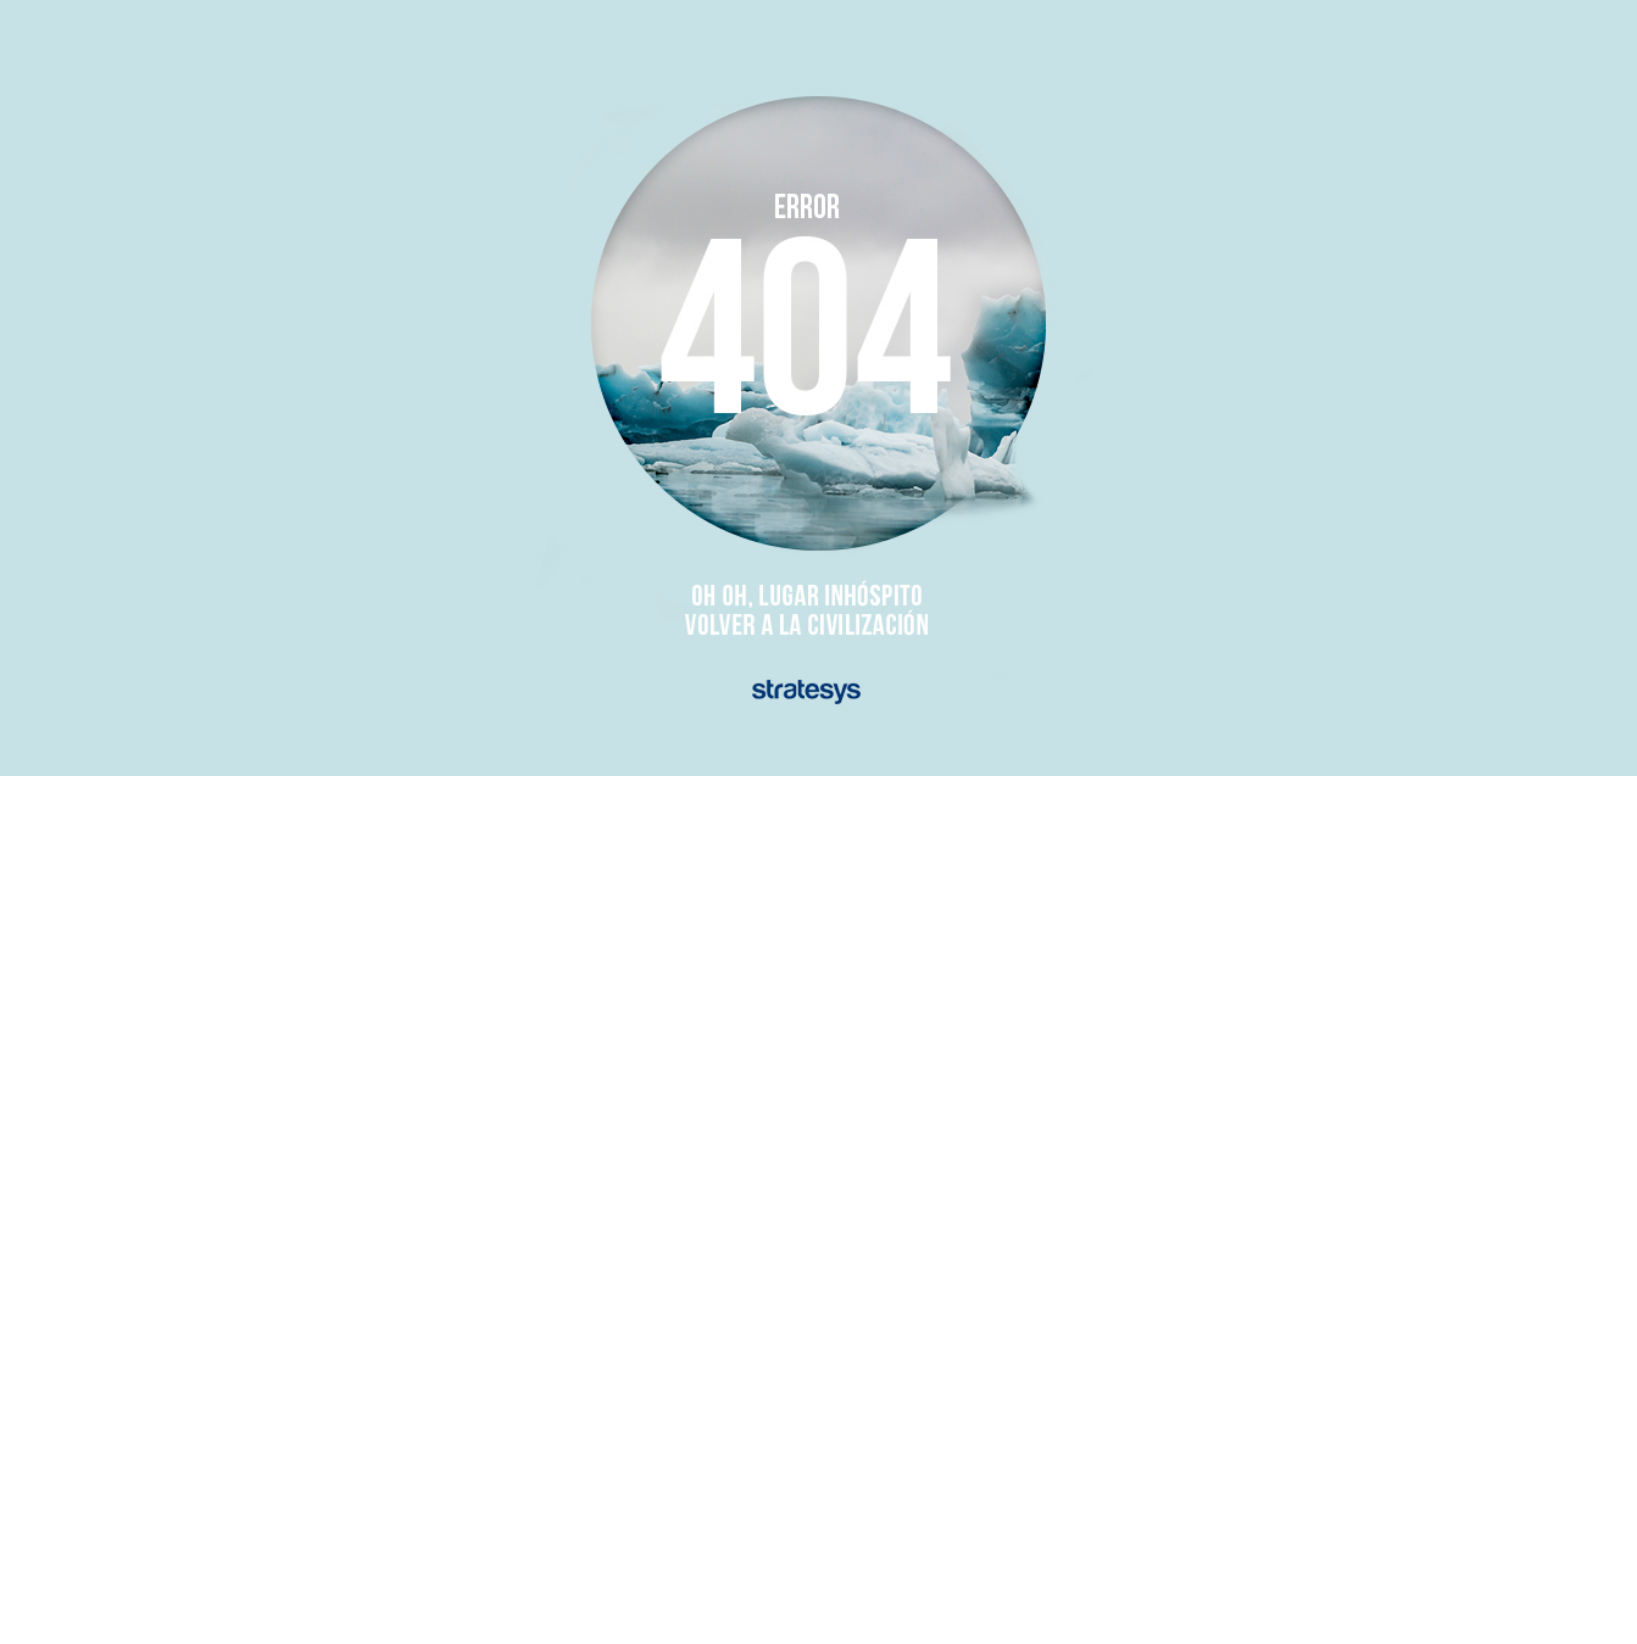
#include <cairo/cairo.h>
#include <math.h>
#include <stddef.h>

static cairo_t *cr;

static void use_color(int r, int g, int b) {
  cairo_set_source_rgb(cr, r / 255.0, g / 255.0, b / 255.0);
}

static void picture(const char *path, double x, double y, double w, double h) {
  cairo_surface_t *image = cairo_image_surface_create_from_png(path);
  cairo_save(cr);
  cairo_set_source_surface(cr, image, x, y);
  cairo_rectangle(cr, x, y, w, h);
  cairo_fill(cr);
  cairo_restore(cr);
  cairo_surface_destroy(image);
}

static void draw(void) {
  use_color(255, 255, 255);
  cairo_paint(cr);
  picture("img_01.png", 0, 0, 1637, 776);
}

int main(void) {
  cairo_surface_t *surface = cairo_image_surface_create(CAIRO_FORMAT_RGB24, 1637, 1644);
  cr = cairo_create(surface);
  cairo_font_options_t *options = cairo_font_options_create();
  cairo_font_options_set_hint_metrics(options, CAIRO_HINT_METRICS_OFF);
  cairo_font_options_set_hint_style(options, CAIRO_HINT_STYLE_NONE);
  cairo_set_font_options(cr, options);
  cairo_set_miter_limit(cr, 4);
  draw();
  cairo_surface_write_to_png(surface, "out.png");
  cairo_font_options_destroy(options);
  cairo_destroy(cr);
  cairo_surface_destroy(surface);
  return 0;
}
